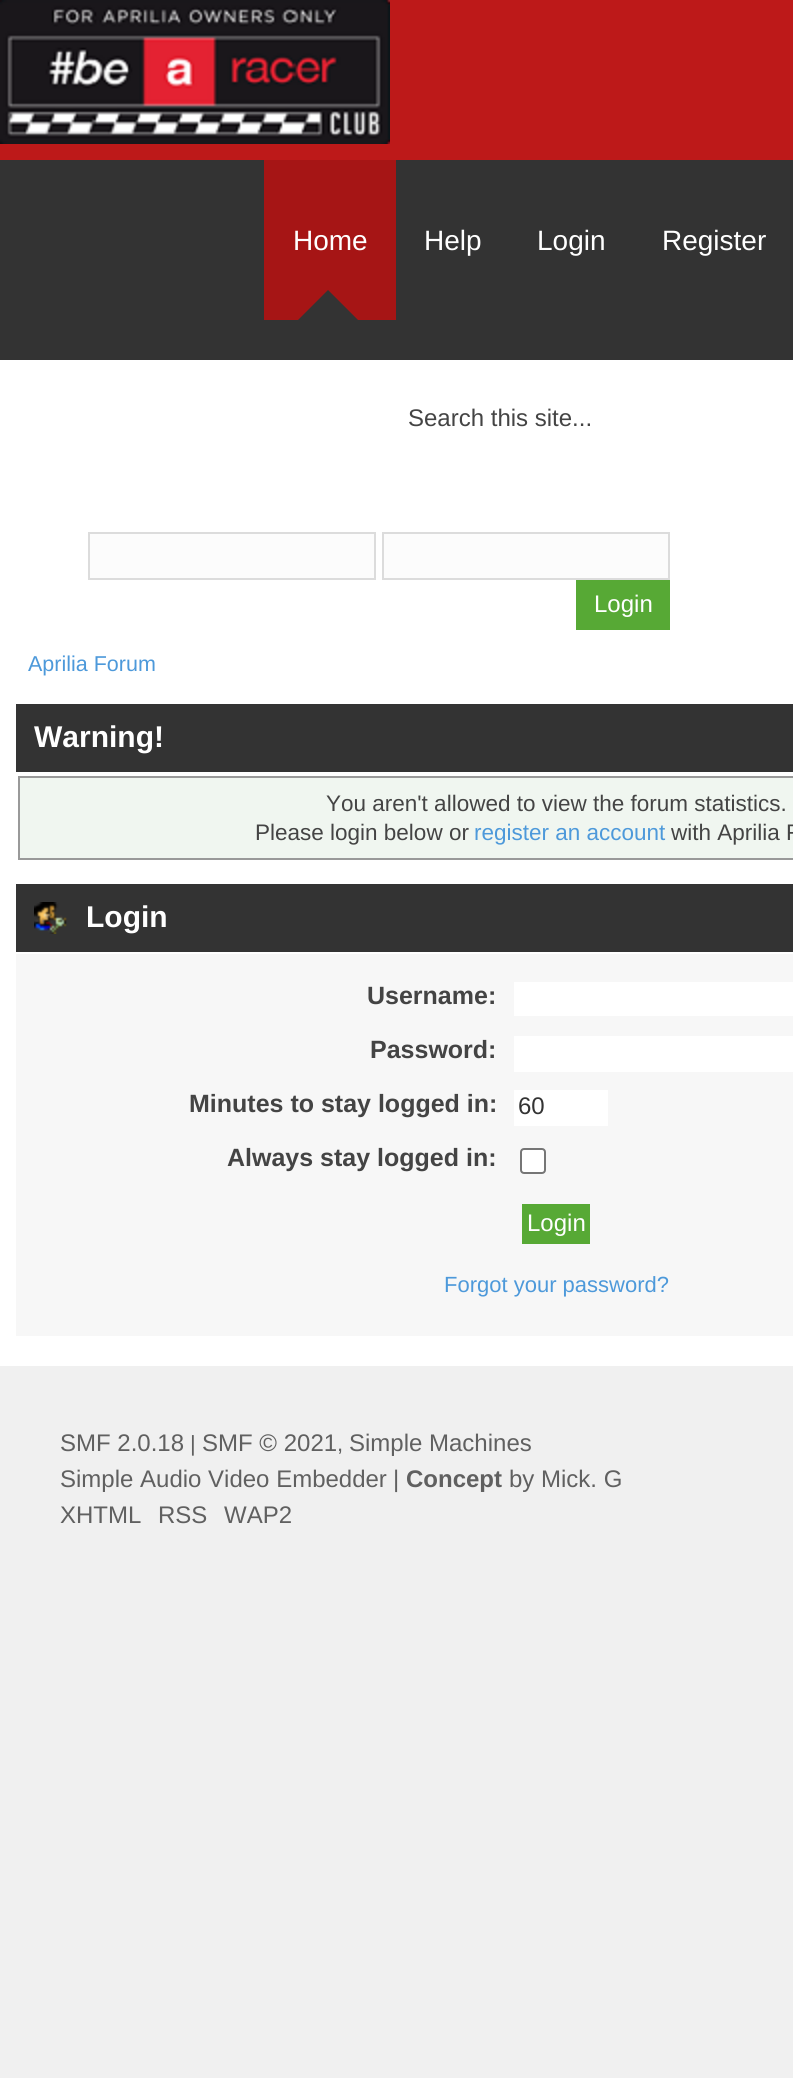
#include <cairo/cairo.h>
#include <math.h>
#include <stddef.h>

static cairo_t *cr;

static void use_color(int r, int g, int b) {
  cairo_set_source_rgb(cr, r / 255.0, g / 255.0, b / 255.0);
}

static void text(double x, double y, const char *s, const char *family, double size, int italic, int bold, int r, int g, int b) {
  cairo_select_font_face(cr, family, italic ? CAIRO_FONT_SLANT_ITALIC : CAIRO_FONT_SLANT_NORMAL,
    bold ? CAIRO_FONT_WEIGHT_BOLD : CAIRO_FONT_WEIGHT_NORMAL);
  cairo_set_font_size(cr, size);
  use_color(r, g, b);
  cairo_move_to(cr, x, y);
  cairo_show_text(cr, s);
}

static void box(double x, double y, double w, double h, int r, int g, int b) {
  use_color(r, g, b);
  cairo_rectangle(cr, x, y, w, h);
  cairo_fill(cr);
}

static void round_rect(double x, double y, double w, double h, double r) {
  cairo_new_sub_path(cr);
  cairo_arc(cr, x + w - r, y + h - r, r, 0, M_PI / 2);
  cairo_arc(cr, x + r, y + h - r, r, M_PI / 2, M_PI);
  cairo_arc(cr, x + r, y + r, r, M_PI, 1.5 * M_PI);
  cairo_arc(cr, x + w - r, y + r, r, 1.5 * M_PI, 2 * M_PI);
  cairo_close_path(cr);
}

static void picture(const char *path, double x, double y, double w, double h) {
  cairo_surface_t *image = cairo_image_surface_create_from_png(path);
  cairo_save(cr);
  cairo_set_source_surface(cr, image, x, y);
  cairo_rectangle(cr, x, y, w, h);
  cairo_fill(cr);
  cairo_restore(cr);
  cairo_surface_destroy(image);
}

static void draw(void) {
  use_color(240, 240, 240);
  cairo_paint(cr);
  box(0, 360, 793, 1006, 255, 255, 255);
  box(0, 0, 793, 160, 189, 25, 25);
  picture("img_01.png", 0, 0, 390, 144);
  box(0, 160, 793, 200, 51, 51, 51);
  box(264, 160, 132, 160, 166, 21, 21);
  use_color(51, 51, 51);
  cairo_new_path(cr);
  cairo_move_to(cr, 358, 320);
  cairo_line_to(cr, 298, 320);
  cairo_line_to(cr, 328, 290);
  cairo_close_path(cr);
  cairo_fill(cr);
  use_color(252, 252, 252);
  cairo_rectangle(cr, 89, 533, 286, 46);
  cairo_fill_preserve(cr);
  use_color(220, 220, 220);
  cairo_stroke(cr);
  use_color(252, 252, 252);
  cairo_rectangle(cr, 383, 533, 286, 46);
  cairo_fill_preserve(cr);
  use_color(220, 220, 220);
  cairo_stroke(cr);
  box(576, 580, 94, 50, 87, 169, 53);
  box(16, 704, 777, 68, 51, 51, 51);
  use_color(240, 246, 240);
  cairo_rectangle(cr, 19, 777, 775, 82);
  cairo_fill_preserve(cr);
  use_color(153, 153, 153);
  cairo_stroke(cr);
  box(16, 884, 777, 68, 51, 51, 51);
  picture("img_02.png", 34, 902, 33, 32);
  box(16, 954, 777, 382, 247, 247, 247);
  box(514, 982, 279, 34, 255, 255, 255);
  box(514, 1036, 279, 36, 255, 255, 255);
  box(514, 1090, 94, 36, 255, 255, 255);
  round_rect(521, 1149, 24, 24, 3);
  cairo_fill_preserve(cr);
  use_color(118, 118, 118);
  cairo_stroke(cr);
  box(522, 1204, 68, 40, 87, 169, 53);
  text(293, 250, "Home", "Liberation Sans", 28, 0, 0, 255, 255, 255);
  text(424, 250, "Help", "Liberation Sans", 28, 0, 0, 255, 255, 255);
  text(537, 250, "Login", "Liberation Sans", 28, 0, 0, 255, 255, 255);
  text(662, 250, "Register", "Liberation Sans", 28, 0, 0, 255, 255, 255);
  text(408, 426, "Search this site...", "Liberation Sans", 24, 0, 0, 68, 68, 68);
  text(594, 612, "Login", "Liberation Sans", 24, 0, 0, 255, 255, 255);
  text(28, 671, "Aprilia Forum", "Liberation Sans", 21.5, 0, 0, 77, 153, 218);
  text(34, 747, "Warning!", "Liberation Sans", 30, 0, 1, 255, 255, 255);
  text(326, 811, "You aren't allowed to view the forum statistics.", "Liberation Sans", 22.5, 0, 0, 68, 68, 68);
  text(255, 840, "Please login below or", "Liberation Sans", 22.5, 0, 0, 68, 68, 68);
  text(474, 840, "register an account", "Liberation Sans", 22.5, 0, 0, 77, 153, 218);
  text(671, 840, "with Aprilia F", "Liberation Sans", 22.5, 0, 0, 68, 68, 68);
  text(86, 927, "Login", "Liberation Sans", 30, 0, 1, 255, 255, 255);
  text(367, 1004, "Username:", "Liberation Sans", 25, 0, 1, 68, 68, 68);
  text(370, 1058, "Password:", "Liberation Sans", 25, 0, 1, 68, 68, 68);
  text(189, 1112, "Minutes to stay logged in:", "Liberation Sans", 25, 0, 1, 68, 68, 68);
  text(518, 1114, "60", "Liberation Sans", 24, 0, 0, 51, 51, 51);
  text(227, 1166, "Always stay logged in:", "Liberation Sans", 25, 0, 1, 68, 68, 68);
  text(527, 1231, "Login", "Liberation Sans", 24, 0, 0, 255, 255, 255);
  text(444, 1292, "Forgot your password?", "Liberation Sans", 22, 0, 0, 77, 153, 218);
  text(60, 1451, "SMF 2.0.18", "Liberation Sans", 24, 0, 0, 96, 96, 96);
  text(190, 1451, "|", "Liberation Sans", 22, 0, 0, 96, 96, 96);
  text(202, 1451, "SMF © 2021", "Liberation Sans", 24, 0, 0, 96, 96, 96);
  text(337, 1451, ",", "Liberation Sans", 22, 0, 0, 96, 96, 96);
  text(349, 1451, "Simple Machines", "Liberation Sans", 24, 0, 0, 96, 96, 96);
  text(60, 1487, "Simple Audio Video Embedder", "Liberation Sans", 24, 0, 0, 96, 96, 96);
  text(393, 1487, "|", "Liberation Sans", 24, 0, 0, 96, 96, 96);
  text(406, 1487, "Concept", "Liberation Sans", 24, 0, 1, 96, 96, 96);
  text(509, 1487, "by Mick. G", "Liberation Sans", 24, 0, 0, 96, 96, 96);
  text(60, 1523, "XHTML", "Liberation Sans", 24, 0, 0, 96, 96, 96);
  text(158, 1523, "RSS", "Liberation Sans", 24, 0, 0, 96, 96, 96);
  text(224, 1523, "WAP2", "Liberation Sans", 24, 0, 0, 96, 96, 96);
}

int main(void) {
  cairo_surface_t *surface = cairo_image_surface_create(CAIRO_FORMAT_RGB24, 793, 2078);
  cr = cairo_create(surface);
  cairo_font_options_t *options = cairo_font_options_create();
  cairo_font_options_set_hint_metrics(options, CAIRO_HINT_METRICS_OFF);
  cairo_font_options_set_hint_style(options, CAIRO_HINT_STYLE_NONE);
  cairo_set_font_options(cr, options);
  cairo_set_miter_limit(cr, 4);
  draw();
  cairo_surface_write_to_png(surface, "out.png");
  cairo_font_options_destroy(options);
  cairo_destroy(cr);
  cairo_surface_destroy(surface);
  return 0;
}
